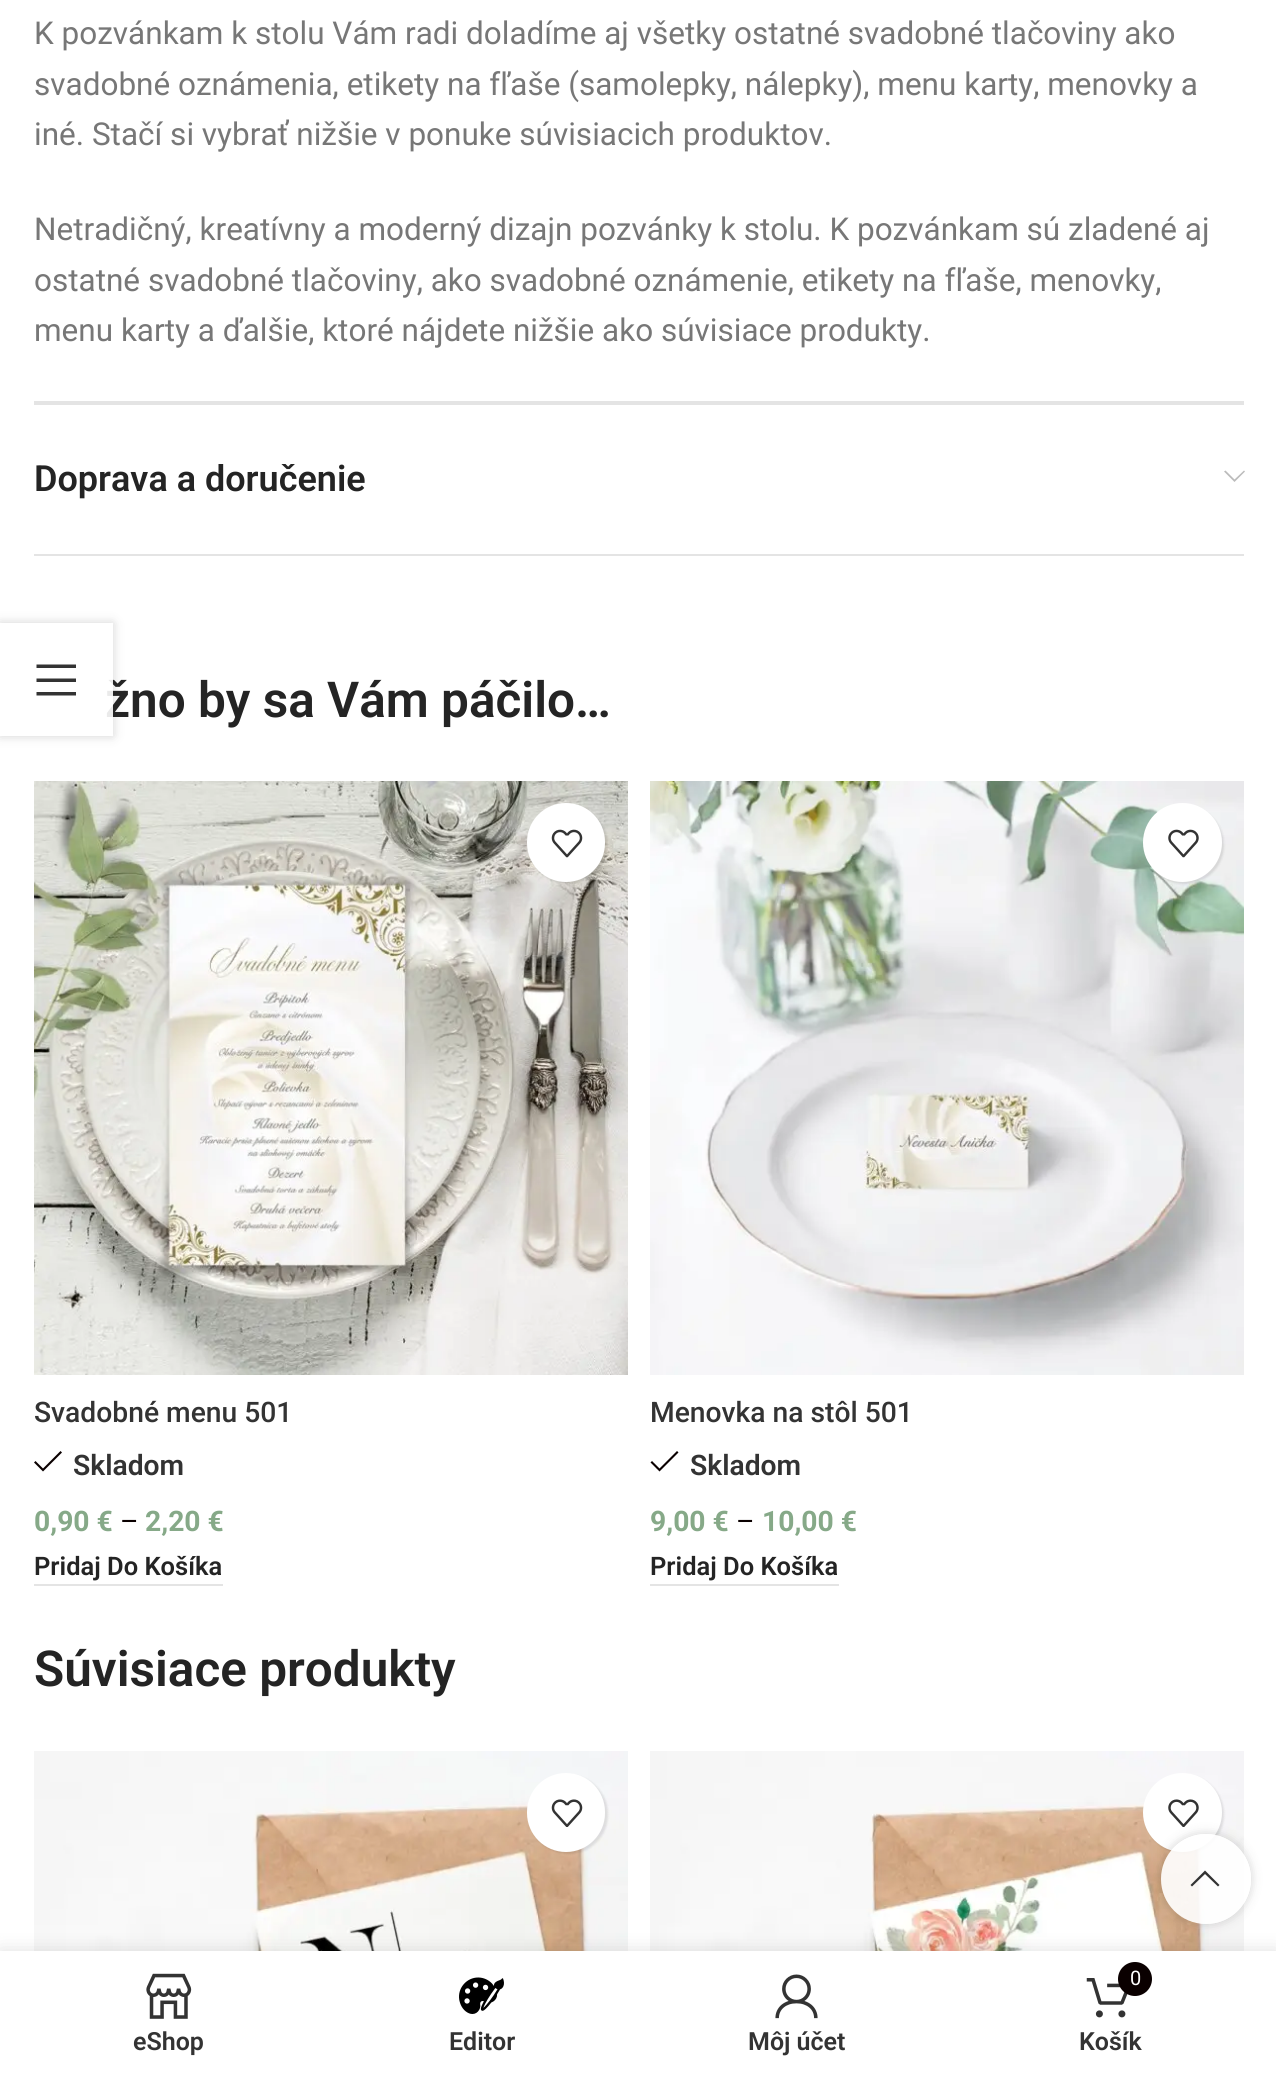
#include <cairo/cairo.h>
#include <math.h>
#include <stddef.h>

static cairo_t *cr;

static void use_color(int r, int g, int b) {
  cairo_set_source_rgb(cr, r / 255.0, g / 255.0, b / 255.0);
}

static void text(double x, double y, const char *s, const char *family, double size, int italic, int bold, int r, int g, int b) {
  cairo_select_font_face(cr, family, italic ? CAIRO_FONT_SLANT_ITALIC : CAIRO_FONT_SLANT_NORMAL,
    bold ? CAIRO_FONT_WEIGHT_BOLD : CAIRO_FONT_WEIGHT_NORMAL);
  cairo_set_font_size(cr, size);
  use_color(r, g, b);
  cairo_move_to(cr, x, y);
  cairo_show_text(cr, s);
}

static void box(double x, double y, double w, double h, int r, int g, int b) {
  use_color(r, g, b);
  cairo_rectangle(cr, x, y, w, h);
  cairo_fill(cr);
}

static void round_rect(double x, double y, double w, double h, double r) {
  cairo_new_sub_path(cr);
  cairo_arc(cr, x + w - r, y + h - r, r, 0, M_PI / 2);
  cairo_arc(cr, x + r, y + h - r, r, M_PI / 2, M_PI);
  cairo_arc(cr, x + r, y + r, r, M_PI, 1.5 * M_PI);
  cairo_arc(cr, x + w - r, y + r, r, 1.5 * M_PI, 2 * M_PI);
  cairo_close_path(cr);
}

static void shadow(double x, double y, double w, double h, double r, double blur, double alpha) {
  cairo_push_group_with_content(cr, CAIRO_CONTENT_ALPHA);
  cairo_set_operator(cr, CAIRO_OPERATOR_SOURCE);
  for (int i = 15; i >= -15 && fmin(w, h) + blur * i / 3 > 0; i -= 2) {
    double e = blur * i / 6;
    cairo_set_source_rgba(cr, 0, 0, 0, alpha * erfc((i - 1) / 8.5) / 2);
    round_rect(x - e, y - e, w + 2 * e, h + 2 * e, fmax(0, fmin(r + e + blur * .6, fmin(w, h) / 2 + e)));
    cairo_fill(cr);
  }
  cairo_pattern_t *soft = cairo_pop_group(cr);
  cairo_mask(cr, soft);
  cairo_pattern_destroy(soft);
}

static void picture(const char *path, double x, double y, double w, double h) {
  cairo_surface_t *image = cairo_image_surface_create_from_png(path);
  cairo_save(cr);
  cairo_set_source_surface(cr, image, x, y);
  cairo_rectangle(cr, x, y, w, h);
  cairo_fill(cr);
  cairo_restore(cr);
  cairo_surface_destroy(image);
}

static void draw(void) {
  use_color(255, 255, 255);
  cairo_paint(cr);
  box(34, 401, 1210, 4, 228, 228, 228);
  box(34, 554, 1210, 2, 228, 228, 228);
  use_color(187, 187, 187);
  cairo_new_path(cr);
  cairo_move_to(cr, 1244, 470.5);
  cairo_line_to(cr, 1234.5, 479.5);
  cairo_line_to(cr, 1225.5, 470.5);
  cairo_line_to(cr, 1224, 471.5);
  cairo_line_to(cr, 1234.5, 482);
  cairo_line_to(cr, 1245, 471.5);
  cairo_close_path(cr);
  cairo_fill(cr);
  picture("img_01.png", 34, 781, 594, 594);
  use_color(0, 0, 0);
  shadow(529, 806, 79, 78, 39, 1, 0.1);
  use_color(255, 255, 255);
  round_rect(527, 803, 78, 79, 39);
  cairo_fill(cr);
  picture("img_02.png", 551, 829, 32, 29);
  use_color(10, 0, 0);
  cairo_new_path(cr);
  cairo_move_to(cr, 62, 1452.5);
  cairo_line_to(cr, 60.5, 1451);
  cairo_line_to(cr, 43, 1468.5);
  cairo_line_to(cr, 35.5, 1461);
  cairo_line_to(cr, 34, 1462.5);
  cairo_line_to(cr, 43, 1471.5);
  cairo_close_path(cr);
  cairo_fill(cr);
  box(34, 1584, 189, 2, 228, 228, 228);
  picture("img_03.png", 650, 781, 594, 594);
  use_color(0, 0, 0);
  shadow(1145, 806, 79, 78, 39, 1, 0.1);
  use_color(255, 255, 255);
  cairo_arc(cr, 1182.5, 842.5, 39.5, 0, 2 * M_PI);
  cairo_fill(cr);
  picture("img_04.png", 1168, 829, 31, 29);
  use_color(10, 0, 0);
  cairo_new_path(cr);
  cairo_move_to(cr, 678.5, 1452.5);
  cairo_line_to(cr, 677, 1451);
  cairo_line_to(cr, 659.5, 1468.5);
  cairo_line_to(cr, 652, 1461);
  cairo_line_to(cr, 650.5, 1462.5);
  cairo_line_to(cr, 659.5, 1471.5);
  cairo_close_path(cr);
  cairo_fill(cr);
  box(650, 1584, 189, 2, 228, 228, 228);
  picture("img_05.png", 34, 1751, 594, 200);
  use_color(0, 0, 0);
  shadow(529, 1775, 79, 79, 39.5, 1, 0.1);
  use_color(255, 255, 255);
  round_rect(527, 1773, 78, 79, 39);
  cairo_fill(cr);
  picture("img_06.png", 551, 1799, 32, 28);
  picture("img_07.png", 650, 1751, 594, 200);
  use_color(0, 0, 0);
  shadow(1145, 1775, 79, 79, 39.5, 1, 0.1);
  use_color(255, 255, 255);
  cairo_arc(cr, 1182.5, 1812.5, 39.5, 0, 2 * M_PI);
  cairo_fill(cr);
  picture("img_08.png", 1168, 1799, 31, 28);
  cairo_save(cr);
  cairo_set_fill_rule(cr, CAIRO_FILL_RULE_EVEN_ODD);
  cairo_new_path(cr);
  cairo_move_to(cr, 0, 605);
  cairo_line_to(cr, 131, 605);
  cairo_line_to(cr, 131, 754);
  cairo_line_to(cr, 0, 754);
  cairo_close_path(cr);
  cairo_move_to(cr, 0, 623);
  cairo_line_to(cr, 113, 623);
  cairo_line_to(cr, 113, 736);
  cairo_line_to(cr, 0, 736);
  cairo_close_path(cr);
  cairo_clip(cr);
  use_color(0, 0, 0);
  shadow(0, 623, 113, 113, 0, 5.5, 0.17);
  cairo_restore(cr);
  cairo_save(cr);
  cairo_set_fill_rule(cr, CAIRO_FILL_RULE_EVEN_ODD);
  cairo_new_path(cr);
  cairo_move_to(cr, 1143, 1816);
  cairo_line_to(cr, 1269, 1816);
  cairo_line_to(cr, 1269, 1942);
  cairo_line_to(cr, 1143, 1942);
  cairo_close_path(cr);
  cairo_move_to(cr, 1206, 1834);
  cairo_curve_to(cr, 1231, 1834, 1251, 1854, 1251, 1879);
  cairo_curve_to(cr, 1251, 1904, 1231, 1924, 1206, 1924);
  cairo_curve_to(cr, 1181, 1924, 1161, 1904, 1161, 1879);
  cairo_curve_to(cr, 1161, 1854, 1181, 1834, 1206, 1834);
  cairo_close_path(cr);
  cairo_clip(cr);
  use_color(0, 0, 0);
  shadow(1161, 1834, 90, 90, 45, 5.5, 0.17);
  cairo_restore(cr);
  cairo_set_source_rgba(cr, 1, 1, 1, 0.9);
  cairo_arc(cr, 1206, 1879, 45, 0, 2 * M_PI);
  cairo_fill(cr);
  use_color(51, 51, 51);
  cairo_new_path(cr);
  cairo_move_to(cr, 1218, 1886.5);
  cairo_line_to(cr, 1219.5, 1885);
  cairo_line_to(cr, 1205, 1870.5);
  cairo_line_to(cr, 1190.5, 1885);
  cairo_line_to(cr, 1192, 1886.5);
  cairo_line_to(cr, 1205, 1874);
  cairo_close_path(cr);
  cairo_fill(cr);
  use_color(0, 0, 0);
  shadow(0, 1951, 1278, 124, 0, 10, 0.12);
  box(0, 1951, 1276, 122, 255, 255, 255);
  picture("img_09.png", 146, 1973, 46, 46);
  picture("img_10.png", 459, 1977, 45, 37);
  picture("img_11.png", 775, 1974, 43, 45);
  picture("img_12.png", 1086, 1978, 42, 40);
  use_color(10, 0, 0);
  cairo_arc(cr, 1135, 1979, 17, 0, 2 * M_PI);
  cairo_fill(cr);
  text(34, 44, "K pozvánkam k stolu Vám radi doladíme aj všetky ostatné svadobné tlačoviny ako", "Roboto", 31.5, 0, 0, 119, 119, 119);
  text(34, 95, "svadobné oznámenia, etikety na fľaše (samolepky, nálepky), menu karty, menovky a", "Roboto", 31.5, 0, 0, 119, 119, 119);
  text(34, 145, "iné. Stačí si vybrať nižšie v ponuke súvisiacich produktov.", "Roboto", 31.5, 0, 0, 119, 119, 119);
  text(34, 240, "Netradičný, kreatívny a moderný dizajn pozvánky k stolu. K pozvánkam sú zladené aj", "Roboto", 31.5, 0, 0, 119, 119, 119);
  text(34, 291, "ostatné svadobné tlačoviny, ako svadobné oznámenie, etikety na fľaše, menovky,", "Roboto", 31.5, 0, 0, 119, 119, 119);
  text(34, 341, "menu karty a ďalšie, ktoré nájdete nižšie ako súvisiace produkty.", "Roboto", 31.5, 0, 0, 119, 119, 119);
  text(34, 491, "Doprava a doručenie", "Roboto SemiBold", 36, 0, 0, 36, 36, 36);
  text(105, 717, "žno by sa Vám páčilo…", "Roboto SemiBold", 49.5, 0, 0, 36, 36, 36);
  text(34, 1422, "Svadobné menu 501", "Roboto Medium", 28.25, 0, 0, 51, 51, 51);
  text(73, 1475, "Skladom", "Roboto SemiBold", 28.25, 0, 0, 51, 51, 51);
  text(34, 1531, "0,90 €", "Roboto", 28.25, 0, 1, 134, 169, 136);
  text(120, 1531, "–", "Roboto", 28.25, 0, 0, 10, 0, 0);
  text(145, 1531, "2,20 €", "Roboto", 28.25, 0, 1, 134, 169, 136);
  text(34, 1575, "Pridaj Do Košíka", "Roboto SemiBold", 25.5, 0, 0, 36, 36, 36);
  text(650, 1422, "Menovka na stôl 501", "Roboto Medium", 28.25, 0, 0, 51, 51, 51);
  text(690, 1475, "Skladom", "Roboto SemiBold", 28.25, 0, 0, 51, 51, 51);
  text(650, 1531, "9,00 €", "Roboto", 28.25, 0, 1, 134, 169, 136);
  text(736, 1531, "–", "Roboto", 28.25, 0, 0, 10, 0, 0);
  text(762, 1531, "10,00 €", "Roboto", 28.25, 0, 1, 134, 169, 136);
  text(650, 1575, "Pridaj Do Košíka", "Roboto SemiBold", 25.5, 0, 0, 36, 36, 36);
  text(34, 1686, "Súvisiace produkty", "Roboto SemiBold", 49.5, 0, 0, 36, 36, 36);
  cairo_set_source_rgba(cr, 1, 1, 1, 0.9);
  cairo_rectangle(cr, 0, 623, 113, 113);
  cairo_fill(cr);
  use_color(51, 51, 51);
  cairo_new_path(cr);
  cairo_move_to(cr, 36.5, 668);
  cairo_line_to(cr, 76, 668);
  cairo_line_to(cr, 76, 664.5);
  cairo_line_to(cr, 36.5, 664.5);
  cairo_close_path(cr);
  cairo_move_to(cr, 36.5, 682);
  cairo_line_to(cr, 76, 682);
  cairo_line_to(cr, 76, 678.5);
  cairo_line_to(cr, 36.5, 678.5);
  cairo_close_path(cr);
  cairo_move_to(cr, 36.5, 695.5);
  cairo_line_to(cr, 76, 695.5);
  cairo_line_to(cr, 76, 692);
  cairo_line_to(cr, 36.5, 692);
  cairo_close_path(cr);
  cairo_fill(cr);
  text(133, 2050, "eShop", "Roboto SemiBold", 25, 0, 0, 51, 51, 51);
  text(449, 2050, "Editor", "Roboto SemiBold", 25, 0, 0, 51, 51, 51);
  text(748, 2050, "Môj účet", "Roboto SemiBold", 25, 0, 0, 51, 51, 51);
  text(1130, 1985, "0", "Roboto", 20, 0, 0, 255, 255, 255);
  text(1079, 2050, "Košík", "Roboto SemiBold", 25, 0, 0, 51, 51, 51);
}

int main(void) {
  cairo_surface_t *surface = cairo_image_surface_create(CAIRO_FORMAT_RGB24, 1276, 2073);
  cr = cairo_create(surface);
  cairo_font_options_t *options = cairo_font_options_create();
  cairo_font_options_set_hint_metrics(options, CAIRO_HINT_METRICS_OFF);
  cairo_font_options_set_hint_style(options, CAIRO_HINT_STYLE_NONE);
  cairo_set_font_options(cr, options);
  cairo_set_miter_limit(cr, 4);
  draw();
  cairo_surface_write_to_png(surface, "out.png");
  cairo_font_options_destroy(options);
  cairo_destroy(cr);
  cairo_surface_destroy(surface);
  return 0;
}
